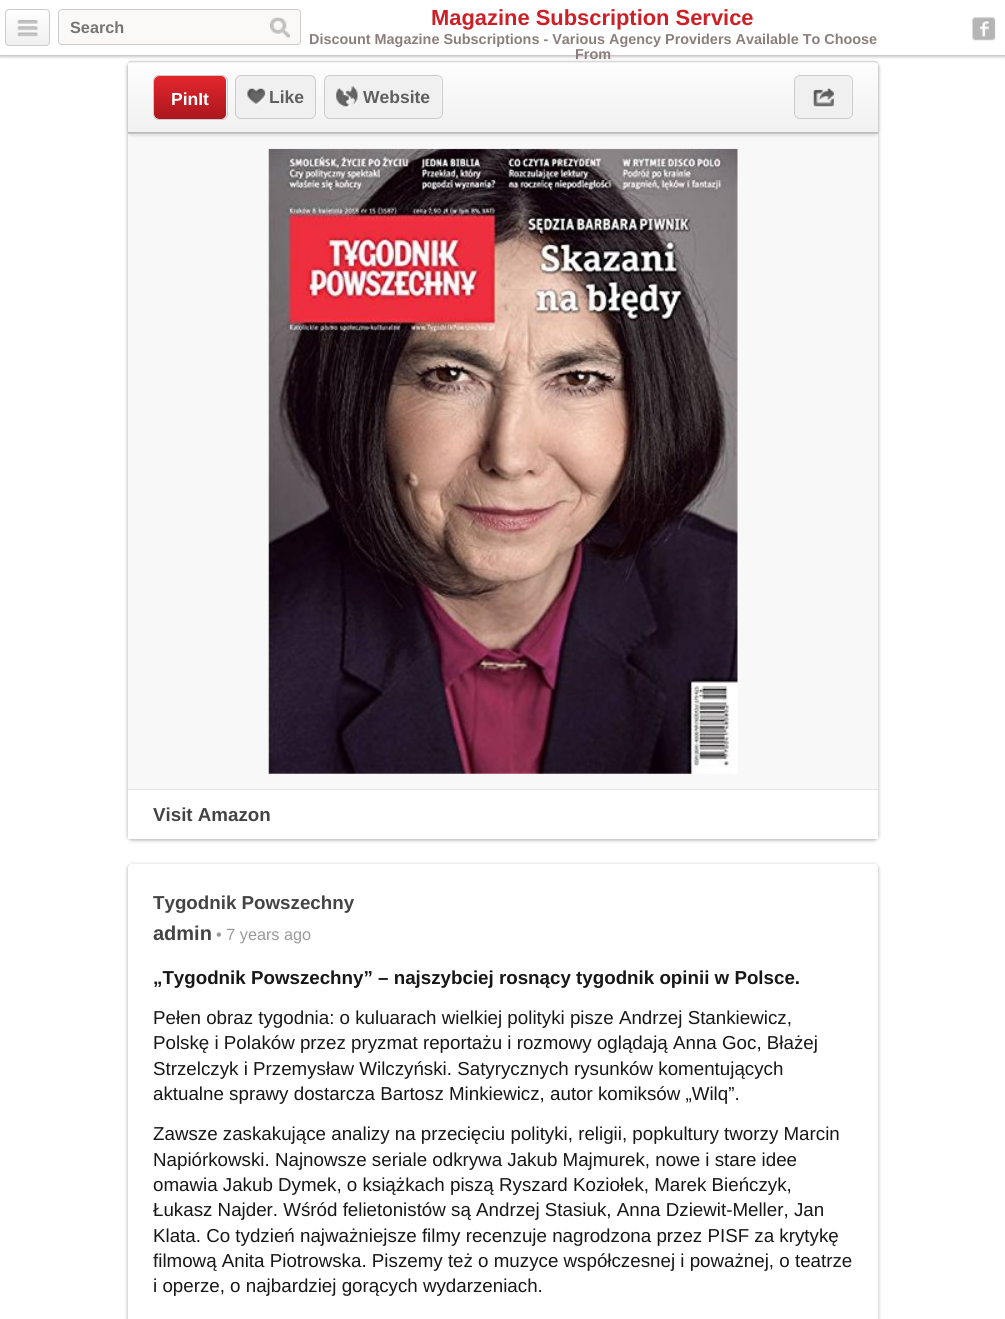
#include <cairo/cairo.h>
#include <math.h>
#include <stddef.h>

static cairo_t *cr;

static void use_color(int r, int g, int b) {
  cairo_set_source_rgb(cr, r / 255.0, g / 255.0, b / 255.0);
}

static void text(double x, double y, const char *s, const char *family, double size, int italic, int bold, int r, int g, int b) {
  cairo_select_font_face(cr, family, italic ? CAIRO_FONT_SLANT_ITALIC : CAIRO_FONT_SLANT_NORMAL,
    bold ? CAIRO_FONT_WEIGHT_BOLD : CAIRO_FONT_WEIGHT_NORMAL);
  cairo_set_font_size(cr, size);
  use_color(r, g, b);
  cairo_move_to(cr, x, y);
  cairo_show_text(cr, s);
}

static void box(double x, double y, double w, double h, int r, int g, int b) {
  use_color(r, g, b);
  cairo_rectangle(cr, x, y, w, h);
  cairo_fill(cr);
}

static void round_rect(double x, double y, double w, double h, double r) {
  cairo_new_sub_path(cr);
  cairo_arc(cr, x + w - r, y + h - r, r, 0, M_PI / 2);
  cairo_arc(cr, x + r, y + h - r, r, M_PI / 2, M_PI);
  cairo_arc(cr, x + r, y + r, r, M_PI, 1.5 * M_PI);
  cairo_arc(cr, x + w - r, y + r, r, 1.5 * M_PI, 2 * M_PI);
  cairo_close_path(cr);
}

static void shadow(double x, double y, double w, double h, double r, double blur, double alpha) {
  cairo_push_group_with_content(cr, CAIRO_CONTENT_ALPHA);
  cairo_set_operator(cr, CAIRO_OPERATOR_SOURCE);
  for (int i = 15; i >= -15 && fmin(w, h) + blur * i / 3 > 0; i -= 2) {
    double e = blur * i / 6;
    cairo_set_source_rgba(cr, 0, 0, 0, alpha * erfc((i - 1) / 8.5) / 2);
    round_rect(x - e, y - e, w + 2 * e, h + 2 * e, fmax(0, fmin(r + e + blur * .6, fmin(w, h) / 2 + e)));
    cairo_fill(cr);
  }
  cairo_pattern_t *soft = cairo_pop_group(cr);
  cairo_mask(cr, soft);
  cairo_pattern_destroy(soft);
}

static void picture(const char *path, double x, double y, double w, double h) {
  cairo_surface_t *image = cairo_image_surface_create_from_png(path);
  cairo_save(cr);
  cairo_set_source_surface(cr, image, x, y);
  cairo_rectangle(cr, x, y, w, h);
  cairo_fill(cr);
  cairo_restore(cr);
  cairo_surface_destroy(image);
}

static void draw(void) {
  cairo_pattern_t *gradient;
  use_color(255, 255, 255);
  cairo_paint(cr);
  use_color(0, 0, 0);
  shadow(128, 63, 750, 777, 4, 2, 0.33);
  use_color(248, 248, 248);
  round_rect(128, 61, 750, 778, 4);
  cairo_fill(cr);
  cairo_save(cr);
  cairo_set_fill_rule(cr, CAIRO_FILL_RULE_EVEN_ODD);
  cairo_new_path(cr);
  cairo_move_to(cr, 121, 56);
  cairo_line_to(cr, 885, 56);
  cairo_line_to(cr, 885, 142);
  cairo_line_to(cr, 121, 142);
  cairo_close_path(cr);
  cairo_move_to(cr, 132, 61);
  cairo_line_to(cr, 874, 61);
  cairo_curve_to(cr, 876, 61, 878, 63, 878, 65);
  cairo_line_to(cr, 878, 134);
  cairo_line_to(cr, 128, 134);
  cairo_line_to(cr, 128, 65);
  cairo_curve_to(cr, 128, 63, 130, 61, 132, 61);
  cairo_close_path(cr);
  cairo_clip(cr);
  use_color(0, 0, 0);
  shadow(128, 63, 750, 72, 4, 2, 0.15);
  cairo_restore(cr);
  cairo_save(cr);
  cairo_new_path(cr);
  cairo_move_to(cr, 132, 61);
  cairo_line_to(cr, 874, 61);
  cairo_curve_to(cr, 876, 61, 878, 63, 878, 65);
  cairo_line_to(cr, 878, 134);
  cairo_line_to(cr, 128, 134);
  cairo_line_to(cr, 128, 65);
  cairo_curve_to(cr, 128, 63, 130, 61, 132, 61);
  cairo_close_path(cr);
  cairo_clip(cr);
  gradient = cairo_pattern_create_linear(503, -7.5, 503, 63);
  cairo_pattern_add_color_stop_rgba(gradient, 0, 1, 1, 1, 0.9);
  cairo_pattern_add_color_stop_rgba(gradient, 1, 0.945, 0.945, 0.945, 0.9);
  cairo_set_source(cr, gradient);
  cairo_pattern_destroy(gradient);
  cairo_rectangle(cr, 128, 61, 750, 2);
  cairo_fill(cr);
  cairo_restore(cr);
  gradient = cairo_pattern_create_linear(503, 62, 503, 133);
  cairo_pattern_add_color_stop_rgba(gradient, 0, 1, 1, 1, 0.9);
  cairo_pattern_add_color_stop_rgba(gradient, 1, 0.945, 0.945, 0.945, 0.9);
  cairo_set_source(cr, gradient);
  cairo_pattern_destroy(gradient);
  cairo_rectangle(cr, 128, 63, 750, 70);
  cairo_fill(cr);
  cairo_set_source_rgba(cr, 0, 0, 0, 0.1);
  cairo_new_path(cr);
  cairo_move_to(cr, 131, 62);
  cairo_curve_to(cr, 129, 62, 128, 64, 128, 65);
  cairo_curve_to(cr, 128, 64, 129, 61, 130, 61);
  cairo_line_to(cr, 875, 61);
  cairo_line_to(cr, 878, 63);
  cairo_line_to(cr, 878, 64);
  cairo_curve_to(cr, 877, 63, 875, 62, 874, 62);
  cairo_close_path(cr);
  cairo_fill(cr);
  cairo_save(cr);
  cairo_rectangle(cr, 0, 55, 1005, 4);
  cairo_clip(cr);
  use_color(34, 25, 25);
  shadow(0, 1, 1005, 55, 0, 2, 0.4);
  cairo_restore(cr);
  cairo_save(cr);
  round_rect(5, 9, 45, 37, 4);
  cairo_clip(cr);
  gradient = cairo_pattern_create_linear(28, 10, 28, 45);
  cairo_pattern_add_color_stop_rgba(gradient, 0, 1, 1, 1, 1);
  cairo_pattern_add_color_stop_rgba(gradient, 1, 0.941, 0.941, 0.941, 1);
  cairo_set_source(cr, gradient);
  cairo_pattern_destroy(gradient);
  cairo_rectangle(cr, 5, 10, 45, 35);
  cairo_fill(cr);
  cairo_restore(cr);
  round_rect(5.5, 9.5, 44, 36, 3.5);
  use_color(204, 204, 204);
  cairo_set_line_width(cr, 1);
  cairo_stroke(cr);
  picture("img_01.png", 17, 20, 21, 17);
  use_color(250, 249, 247);
  round_rect(58.5, 9.5, 242, 35, 3.5);
  cairo_fill_preserve(cr);
  use_color(204, 204, 204);
  cairo_stroke(cr);
  picture("img_02.png", 270, 17, 20, 21);
  picture("img_03.png", 972, 17, 24, 24);
  gradient = cairo_pattern_create_linear(503, 132, 503, 203);
  cairo_pattern_add_color_stop_rgba(gradient, 0, 1, 1, 1, 0.9);
  cairo_pattern_add_color_stop_rgba(gradient, 1, 0.945, 0.945, 0.945, 0.9);
  cairo_set_source(cr, gradient);
  cairo_pattern_destroy(gradient);
  cairo_rectangle(cr, 128, 133, 750, 1);
  cairo_fill(cr);
  cairo_set_source_rgba(cr, 0, 0, 0, 0.22);
  cairo_rectangle(cr, 128, 132, 750, 2);
  cairo_fill(cr);
  gradient = cairo_pattern_create_linear(190, 76, 190, 119);
  cairo_pattern_add_color_stop_rgba(gradient, 0, 0.89, 0.149, 0.18, 1);
  cairo_pattern_add_color_stop_rgba(gradient, 1, 0.671, 0.09, 0.118, 1);
  cairo_set_source(cr, gradient);
  cairo_pattern_destroy(gradient);
  round_rect(154, 76, 72, 43, 5);
  cairo_fill(cr);
  round_rect(153.5, 75.5, 74, 44, 5.5);
  use_color(204, 204, 204);
  cairo_stroke(cr);
  use_color(240, 240, 240);
  round_rect(235.5, 75.5, 80, 43, 5.5);
  cairo_fill_preserve(cr);
  use_color(204, 204, 204);
  cairo_stroke(cr);
  picture("img_04.png", 247, 88, 20, 17);
  use_color(240, 240, 240);
  round_rect(325, 76, 116, 42, 5);
  cairo_fill(cr);
  round_rect(324.5, 75.5, 118, 43, 5.5);
  use_color(204, 204, 204);
  cairo_stroke(cr);
  picture("img_05.png", 336, 86, 22, 22);
  use_color(240, 240, 240);
  round_rect(795, 76, 56, 42, 5);
  cairo_fill(cr);
  round_rect(794.5, 75.5, 58, 43, 5.5);
  use_color(204, 204, 204);
  cairo_stroke(cr);
  picture("img_06.png", 813, 88, 21, 20);
  picture("img_07.png", 268, 148, 470, 626);
  box(128, 790, 750, 49, 255, 255, 255);
  box(128, 789, 750, 1, 227, 227, 227);
  use_color(0, 0, 0);
  shadow(128, 865, 750, 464, 4, 2, 0.33);
  use_color(255, 255, 255);
  round_rect(128, 864, 750, 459, 4);
  cairo_fill(cr);
  text(70, 33, "Search", "Liberation Sans", 16.25, 0, 1, 117, 117, 117);
  text(431, 25, "Magazine Subscription Service", "Liberation Sans", 21.9, 0, 1, 203, 32, 39);
  text(309, 44, "Discount Magazine Subscriptions - Various Agency Providers Available To Choose", "Liberation Sans", 14.4, 0, 1, 140, 126, 126);
  text(575, 59, "From", "Liberation Sans", 14.4, 0, 1, 140, 126, 126);
  text(171, 105, "PinIt", "Liberation Sans", 17.5, 0, 1, 255, 255, 255);
  text(269, 103, "Like", "Liberation Sans", 17.5, 0, 1, 95, 95, 95);
  text(363, 103, "Website", "Liberation Sans", 17.5, 0, 1, 95, 95, 95);
  text(153, 821, "Visit Amazon", "Liberation Sans", 18.75, 0, 1, 68, 68, 68);
  text(153, 909, "Tygodnik Powszechny", "Liberation Sans", 18.75, 0, 1, 68, 68, 68);
  text(153, 940, "admin", "Liberation Sans", 20, 0, 1, 68, 68, 68);
  text(216, 940, "• 7 years ago", "Liberation Sans", 16.25, 0, 0, 153, 153, 153);
  text(153, 984, "„Tygodnik Powszechny” – najszybciej rosnący tygodnik opinii w Polsce.", "Liberation Sans", 18.75, 0, 1, 23, 23, 23);
  text(153, 1024, "Pełen obraz tygodnia: o kuluarach wielkiej polityki pisze Andrzej Stankiewicz,", "Liberation Sans", 18.75, 0, 0, 23, 23, 23);
  text(153, 1049, "Polskę i Polaków przez pryzmat reportażu i rozmowy oglądają Anna Goc, Błażej", "Liberation Sans", 18.75, 0, 0, 23, 23, 23);
  text(153, 1075, "Strzelczyk i Przemysław Wilczyński. Satyrycznych rysunków komentujących", "Liberation Sans", 18.75, 0, 0, 23, 23, 23);
  text(153, 1100, "aktualne sprawy dostarcza Bartosz Minkiewicz, autor komiksów „Wilq”.", "Liberation Sans", 18.75, 0, 0, 23, 23, 23);
  text(153, 1140, "Zawsze zaskakujące analizy na przecięciu polityki, religii, popkultury tworzy Marcin", "Liberation Sans", 18.75, 0, 0, 23, 23, 23);
  text(153, 1166, "Napiórkowski. Najnowsze seriale odkrywa Jakub Majmurek, nowe i stare idee", "Liberation Sans", 18.75, 0, 0, 23, 23, 23);
  text(153, 1191, "omawia Jakub Dymek, o książkach piszą Ryszard Koziołek, Marek Bieńczyk,", "Liberation Sans", 18.75, 0, 0, 23, 23, 23);
  text(153, 1216, "Łukasz Najder. Wśród felietonistów są Andrzej Stasiuk, Anna Dziewit-Meller, Jan", "Liberation Sans", 18.75, 0, 0, 23, 23, 23);
  text(153, 1242, "Klata. Co tydzień najważniejsze filmy recenzuje nagrodzona przez PISF za krytykę", "Liberation Sans", 18.75, 0, 0, 23, 23, 23);
  text(153, 1267, "filmową Anita Piotrowska. Piszemy też o muzyce współczesnej i poważnej, o teatrze", "Liberation Sans", 18.75, 0, 0, 23, 23, 23);
  text(153, 1292, "i operze, o najbardziej gorących wydarzeniach.", "Liberation Sans", 18.75, 0, 0, 23, 23, 23);
}

int main(void) {
  cairo_surface_t *surface = cairo_image_surface_create(CAIRO_FORMAT_RGB24, 1005, 1319);
  cr = cairo_create(surface);
  cairo_font_options_t *options = cairo_font_options_create();
  cairo_font_options_set_hint_metrics(options, CAIRO_HINT_METRICS_OFF);
  cairo_font_options_set_hint_style(options, CAIRO_HINT_STYLE_NONE);
  cairo_set_font_options(cr, options);
  cairo_set_miter_limit(cr, 4);
  draw();
  cairo_surface_write_to_png(surface, "out.png");
  cairo_font_options_destroy(options);
  cairo_destroy(cr);
  cairo_surface_destroy(surface);
  return 0;
}
